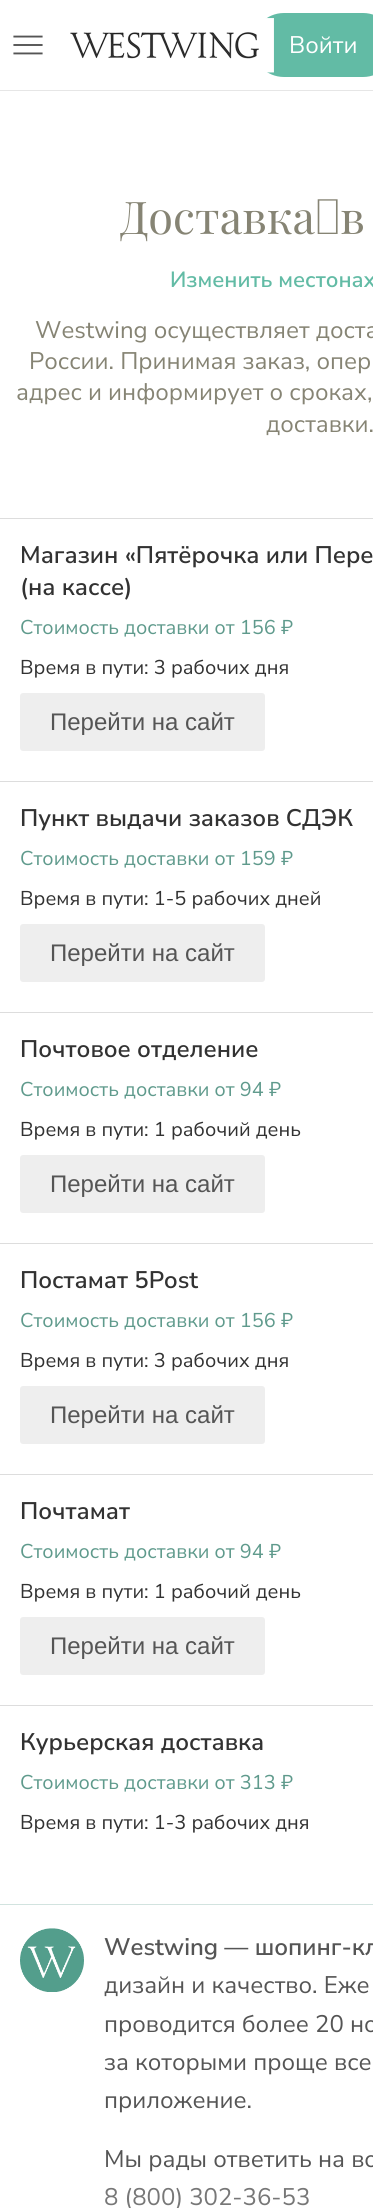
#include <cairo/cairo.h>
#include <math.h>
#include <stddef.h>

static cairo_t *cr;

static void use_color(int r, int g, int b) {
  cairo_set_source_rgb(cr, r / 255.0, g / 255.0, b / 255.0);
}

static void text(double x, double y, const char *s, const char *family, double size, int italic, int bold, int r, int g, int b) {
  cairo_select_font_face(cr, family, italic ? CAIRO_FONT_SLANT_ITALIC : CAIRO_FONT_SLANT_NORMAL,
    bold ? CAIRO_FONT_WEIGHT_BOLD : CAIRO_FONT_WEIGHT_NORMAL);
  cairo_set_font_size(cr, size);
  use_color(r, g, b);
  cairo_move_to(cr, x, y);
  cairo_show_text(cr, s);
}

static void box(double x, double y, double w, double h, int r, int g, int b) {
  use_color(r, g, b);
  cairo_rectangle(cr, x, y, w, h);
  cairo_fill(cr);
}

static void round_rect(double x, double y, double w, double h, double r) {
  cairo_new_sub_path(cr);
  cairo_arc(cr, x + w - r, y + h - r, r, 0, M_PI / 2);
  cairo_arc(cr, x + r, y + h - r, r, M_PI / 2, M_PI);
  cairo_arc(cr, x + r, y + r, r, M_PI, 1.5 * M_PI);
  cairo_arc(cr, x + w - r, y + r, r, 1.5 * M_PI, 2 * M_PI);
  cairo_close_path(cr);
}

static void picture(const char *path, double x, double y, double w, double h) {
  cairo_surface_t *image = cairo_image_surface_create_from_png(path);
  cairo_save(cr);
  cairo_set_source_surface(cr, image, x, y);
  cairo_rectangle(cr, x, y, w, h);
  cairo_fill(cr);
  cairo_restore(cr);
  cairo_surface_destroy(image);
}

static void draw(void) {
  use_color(255, 255, 255);
  cairo_paint(cr);
  box(0, 90, 373, 1, 230, 230, 230);
  picture("img_01.png", 13, 35, 30, 20);
  use_color(98, 187, 165);
  round_rect(252, 13, 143, 64, 32);
  cairo_fill(cr);
  picture("img_02.png", 70, 18, 204, 55);
  box(0, 518, 373, 1, 221, 221, 221);
  use_color(238, 238, 238);
  round_rect(20, 693, 245, 58, 3);
  cairo_fill(cr);
  box(0, 781, 373, 1, 221, 221, 221);
  use_color(238, 238, 238);
  round_rect(20, 924, 245, 58, 3);
  cairo_fill(cr);
  box(0, 1012, 373, 1, 221, 221, 221);
  use_color(238, 238, 238);
  round_rect(20, 1155, 245, 58, 3);
  cairo_fill(cr);
  box(0, 1243, 373, 1, 221, 221, 221);
  use_color(238, 238, 238);
  round_rect(20, 1386, 245, 58, 3);
  cairo_fill(cr);
  box(0, 1474, 373, 1, 221, 221, 221);
  use_color(238, 238, 238);
  round_rect(20, 1617, 245, 58, 3);
  cairo_fill(cr);
  box(0, 1705, 373, 1, 221, 221, 221);
  box(0, 1904, 373, 1, 210, 227, 223);
  picture("img_03.png", 20, 1928, 64, 64);
  text(289, 53, "Войти", "Nunito Sans", 24, 0, 0, 255, 255, 255);
  text(120, 234, "Доставка в", "Playfair Display", 45, 0, 0, 134, 132, 116);
  text(170, 287, "Изменить местонах", "Nunito Sans SemiBold", 22, 0, 0, 98, 187, 165);
  text(35, 338, "Westwing осуществляет доста", "Nunito Sans", 24, 0, 0, 134, 132, 116);
  text(29, 369, "России. Принимая заказ, опер", "Nunito Sans", 24, 0, 0, 134, 132, 116);
  text(16, 400, "адрес и информирует о сроках,", "Nunito Sans", 24, 0, 0, 134, 132, 116);
  text(266, 432, "доставки.", "Nunito Sans", 24, 0, 0, 134, 132, 116);
  text(20, 563, "Магазин «Пятёрочка или Пере", "Nunito Sans SemiBold", 24, 0, 0, 50, 50, 50);
  text(20, 595, "(на кассе)", "Nunito Sans SemiBold", 24, 0, 0, 50, 50, 50);
  text(20, 634, "Стоимость доставки oт 156 ₽", "Nunito Sans", 20, 0, 0, 95, 154, 140);
  text(20, 674, "Время в пути: 3 рабочих дня", "Nunito Sans", 20, 0, 0, 50, 50, 50);
  text(50, 730, "Перейти на сайт", "Liberation Sans", 24, 0, 0, 85, 85, 85);
  text(20, 826, "Пункт выдачи заказов СДЭК", "Nunito Sans SemiBold", 24, 0, 0, 50, 50, 50);
  text(20, 865, "Стоимость доставки oт 159 ₽", "Nunito Sans", 20, 0, 0, 95, 154, 140);
  text(20, 905, "Время в пути: 1-5 рабочих дней", "Nunito Sans", 20, 0, 0, 50, 50, 50);
  text(50, 961, "Перейти на сайт", "Liberation Sans", 24, 0, 0, 85, 85, 85);
  text(20, 1057, "Почтовое отделение", "Nunito Sans SemiBold", 24, 0, 0, 50, 50, 50);
  text(20, 1096, "Стоимость доставки oт 94 ₽", "Nunito Sans", 20, 0, 0, 95, 154, 140);
  text(20, 1136, "Время в пути: 1 рабочий день", "Nunito Sans", 20, 0, 0, 50, 50, 50);
  text(50, 1192, "Перейти на сайт", "Liberation Sans", 24, 0, 0, 85, 85, 85);
  text(20, 1288, "Постамат 5Post", "Nunito Sans SemiBold", 24, 0, 0, 50, 50, 50);
  text(20, 1327, "Стоимость доставки oт 156 ₽", "Nunito Sans", 20, 0, 0, 95, 154, 140);
  text(20, 1367, "Время в пути: 3 рабочих дня", "Nunito Sans", 20, 0, 0, 50, 50, 50);
  text(50, 1423, "Перейти на сайт", "Liberation Sans", 24, 0, 0, 85, 85, 85);
  text(20, 1519, "Почтамат", "Nunito Sans SemiBold", 24, 0, 0, 50, 50, 50);
  text(20, 1558, "Стоимость доставки oт 94 ₽", "Nunito Sans", 20, 0, 0, 95, 154, 140);
  text(20, 1598, "Время в пути: 1 рабочий день", "Nunito Sans", 20, 0, 0, 50, 50, 50);
  text(50, 1654, "Перейти на сайт", "Liberation Sans", 24, 0, 0, 85, 85, 85);
  text(20, 1750, "Курьерская доставка", "Nunito Sans SemiBold", 24, 0, 0, 50, 50, 50);
  text(20, 1789, "Стоимость доставки oт 313 ₽", "Nunito Sans", 20, 0, 0, 95, 154, 140);
  text(20, 1829, "Время в пути: 1-3 рабочих дня", "Nunito Sans", 20, 0, 0, 50, 50, 50);
  text(104, 1955, "Westwing — шопинг-кл", "Nunito Sans SemiBold", 24, 0, 0, 85, 85, 85);
  text(104, 1993, "дизайн и качество. Еже", "Nunito Sans", 24, 0, 0, 85, 85, 85);
  text(104, 2032, "проводится более 20 но", "Nunito Sans", 24, 0, 0, 85, 85, 85);
  text(104, 2070, "за которыми проще все", "Nunito Sans", 24, 0, 0, 85, 85, 85);
  text(104, 2108, "приложение.", "Nunito Sans", 24, 0, 0, 85, 85, 85);
  text(104, 2167, "Мы рады ответить на во", "Nunito Sans", 24, 0, 0, 85, 85, 85);
  text(104, 2205, "8 (800) 302-36-53", "Nunito Sans", 24, 0, 0, 119, 119, 119);
}

int main(void) {
  cairo_surface_t *surface = cairo_image_surface_create(CAIRO_FORMAT_RGB24, 373, 2208);
  cr = cairo_create(surface);
  cairo_font_options_t *options = cairo_font_options_create();
  cairo_font_options_set_hint_metrics(options, CAIRO_HINT_METRICS_OFF);
  cairo_font_options_set_hint_style(options, CAIRO_HINT_STYLE_NONE);
  cairo_set_font_options(cr, options);
  cairo_set_miter_limit(cr, 4);
  draw();
  cairo_surface_write_to_png(surface, "out.png");
  cairo_font_options_destroy(options);
  cairo_destroy(cr);
  cairo_surface_destroy(surface);
  return 0;
}
